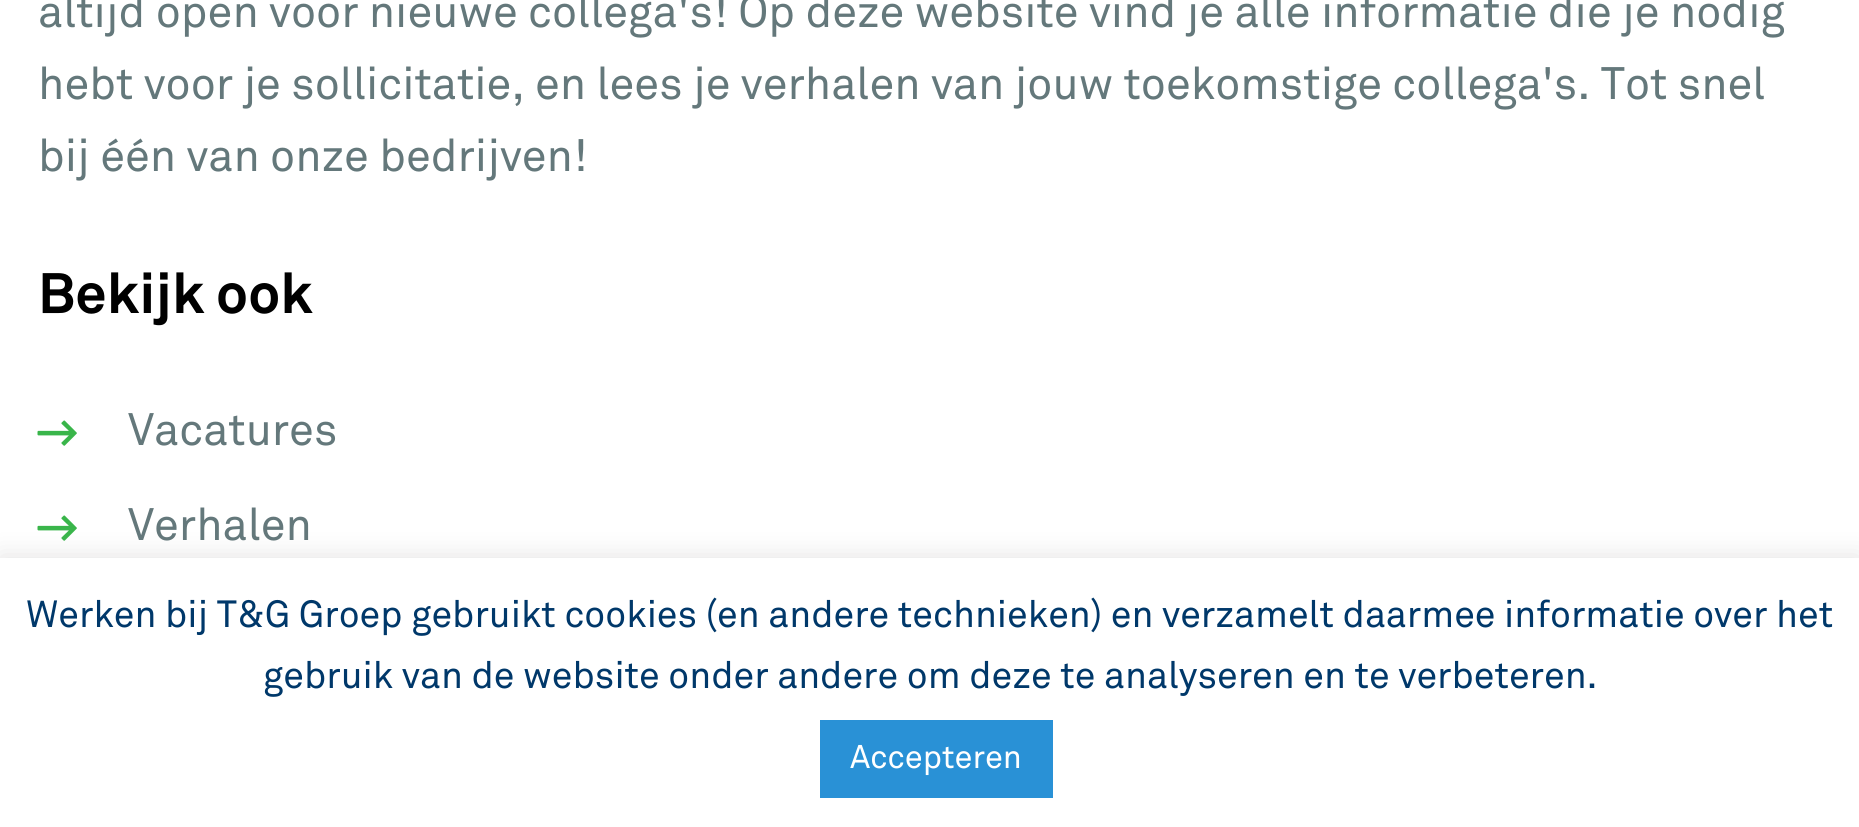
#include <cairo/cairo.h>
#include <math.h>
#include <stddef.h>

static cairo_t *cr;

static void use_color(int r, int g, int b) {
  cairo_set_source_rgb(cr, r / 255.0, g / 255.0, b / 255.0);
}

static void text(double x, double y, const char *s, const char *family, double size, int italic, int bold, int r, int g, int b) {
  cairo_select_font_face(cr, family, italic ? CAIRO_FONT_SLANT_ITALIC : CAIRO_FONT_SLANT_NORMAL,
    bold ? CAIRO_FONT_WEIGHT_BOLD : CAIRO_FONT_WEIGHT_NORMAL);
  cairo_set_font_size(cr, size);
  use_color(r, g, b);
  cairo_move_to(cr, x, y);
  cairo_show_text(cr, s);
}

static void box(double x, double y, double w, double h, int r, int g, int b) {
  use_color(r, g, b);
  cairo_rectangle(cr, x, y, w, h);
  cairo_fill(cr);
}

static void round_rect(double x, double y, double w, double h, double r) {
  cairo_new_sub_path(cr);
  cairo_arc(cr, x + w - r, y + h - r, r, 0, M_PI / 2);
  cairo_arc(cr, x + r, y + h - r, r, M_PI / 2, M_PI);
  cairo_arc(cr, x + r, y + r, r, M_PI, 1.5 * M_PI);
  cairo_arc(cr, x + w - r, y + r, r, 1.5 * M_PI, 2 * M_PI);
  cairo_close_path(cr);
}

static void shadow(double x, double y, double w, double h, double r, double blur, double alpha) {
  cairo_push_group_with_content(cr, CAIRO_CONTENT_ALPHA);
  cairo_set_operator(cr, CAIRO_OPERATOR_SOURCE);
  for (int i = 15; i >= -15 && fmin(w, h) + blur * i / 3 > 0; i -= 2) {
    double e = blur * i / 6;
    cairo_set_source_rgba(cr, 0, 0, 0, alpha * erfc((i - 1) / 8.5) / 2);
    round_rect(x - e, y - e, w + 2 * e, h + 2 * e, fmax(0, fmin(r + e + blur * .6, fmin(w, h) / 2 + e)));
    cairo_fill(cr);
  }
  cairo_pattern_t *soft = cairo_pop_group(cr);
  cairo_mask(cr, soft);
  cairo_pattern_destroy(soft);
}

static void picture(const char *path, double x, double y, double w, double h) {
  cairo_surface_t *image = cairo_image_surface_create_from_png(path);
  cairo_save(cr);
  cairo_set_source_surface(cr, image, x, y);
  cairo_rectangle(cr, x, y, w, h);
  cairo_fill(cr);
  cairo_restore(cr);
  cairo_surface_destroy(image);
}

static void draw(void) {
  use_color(255, 255, 255);
  cairo_paint(cr);
  picture("img_01.png", 37, 420, 40, 26);
  picture("img_01.png", 37, 515, 40, 26);
  use_color(172, 171, 171);
  shadow(0, 555, 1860, 270, 0, 12.5, 0.3);
  box(0, 558, 1859, 269, 255, 255, 255);
  box(820, 720, 233, 78, 41, 145, 214);
  text(38, 27, "altijd open voor nieuwe collega's! Op deze website vind je alle informatie die je nodig", "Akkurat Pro", 45, 0, 0, 100, 120, 123);
  text(38, 99, "hebt voor je sollicitatie, en lees je verhalen van jouw toekomstige collega's. Tot snel", "Akkurat Pro", 45, 0, 0, 100, 120, 123);
  text(38, 171, "bij één van onze bedrijven!", "Akkurat Pro", 45, 0, 0, 100, 120, 123);
  text(38, 313, "Bekijk ook", "Akkurat Pro", 56.25, 0, 1, 0, 0, 0);
  text(128, 445, "Vacatures", "Akkurat Pro", 45, 0, 0, 100, 120, 123);
  text(128, 540, "Verhalen", "Akkurat Pro", 45, 0, 0, 100, 120, 123);
  text(26, 627, "Werken bij T&G Groep gebruikt cookies (en andere technieken) en verzamelt daarmee informatie over het", "Akkurat Pro", 37.5, 0, 0, 0, 56, 106);
  text(263, 688, "gebruik van de website onder andere om deze te analyseren en te verbeteren.", "Akkurat Pro", 37.5, 0, 0, 0, 56, 106);
  text(850, 768, "Accepteren", "Akkurat Pro", 32.5, 0, 0, 255, 255, 255);
}

int main(void) {
  cairo_surface_t *surface = cairo_image_surface_create(CAIRO_FORMAT_RGB24, 1859, 827);
  cr = cairo_create(surface);
  cairo_font_options_t *options = cairo_font_options_create();
  cairo_font_options_set_hint_metrics(options, CAIRO_HINT_METRICS_OFF);
  cairo_font_options_set_hint_style(options, CAIRO_HINT_STYLE_NONE);
  cairo_set_font_options(cr, options);
  cairo_set_miter_limit(cr, 4);
  draw();
  cairo_surface_write_to_png(surface, "out.png");
  cairo_font_options_destroy(options);
  cairo_destroy(cr);
  cairo_surface_destroy(surface);
  return 0;
}
